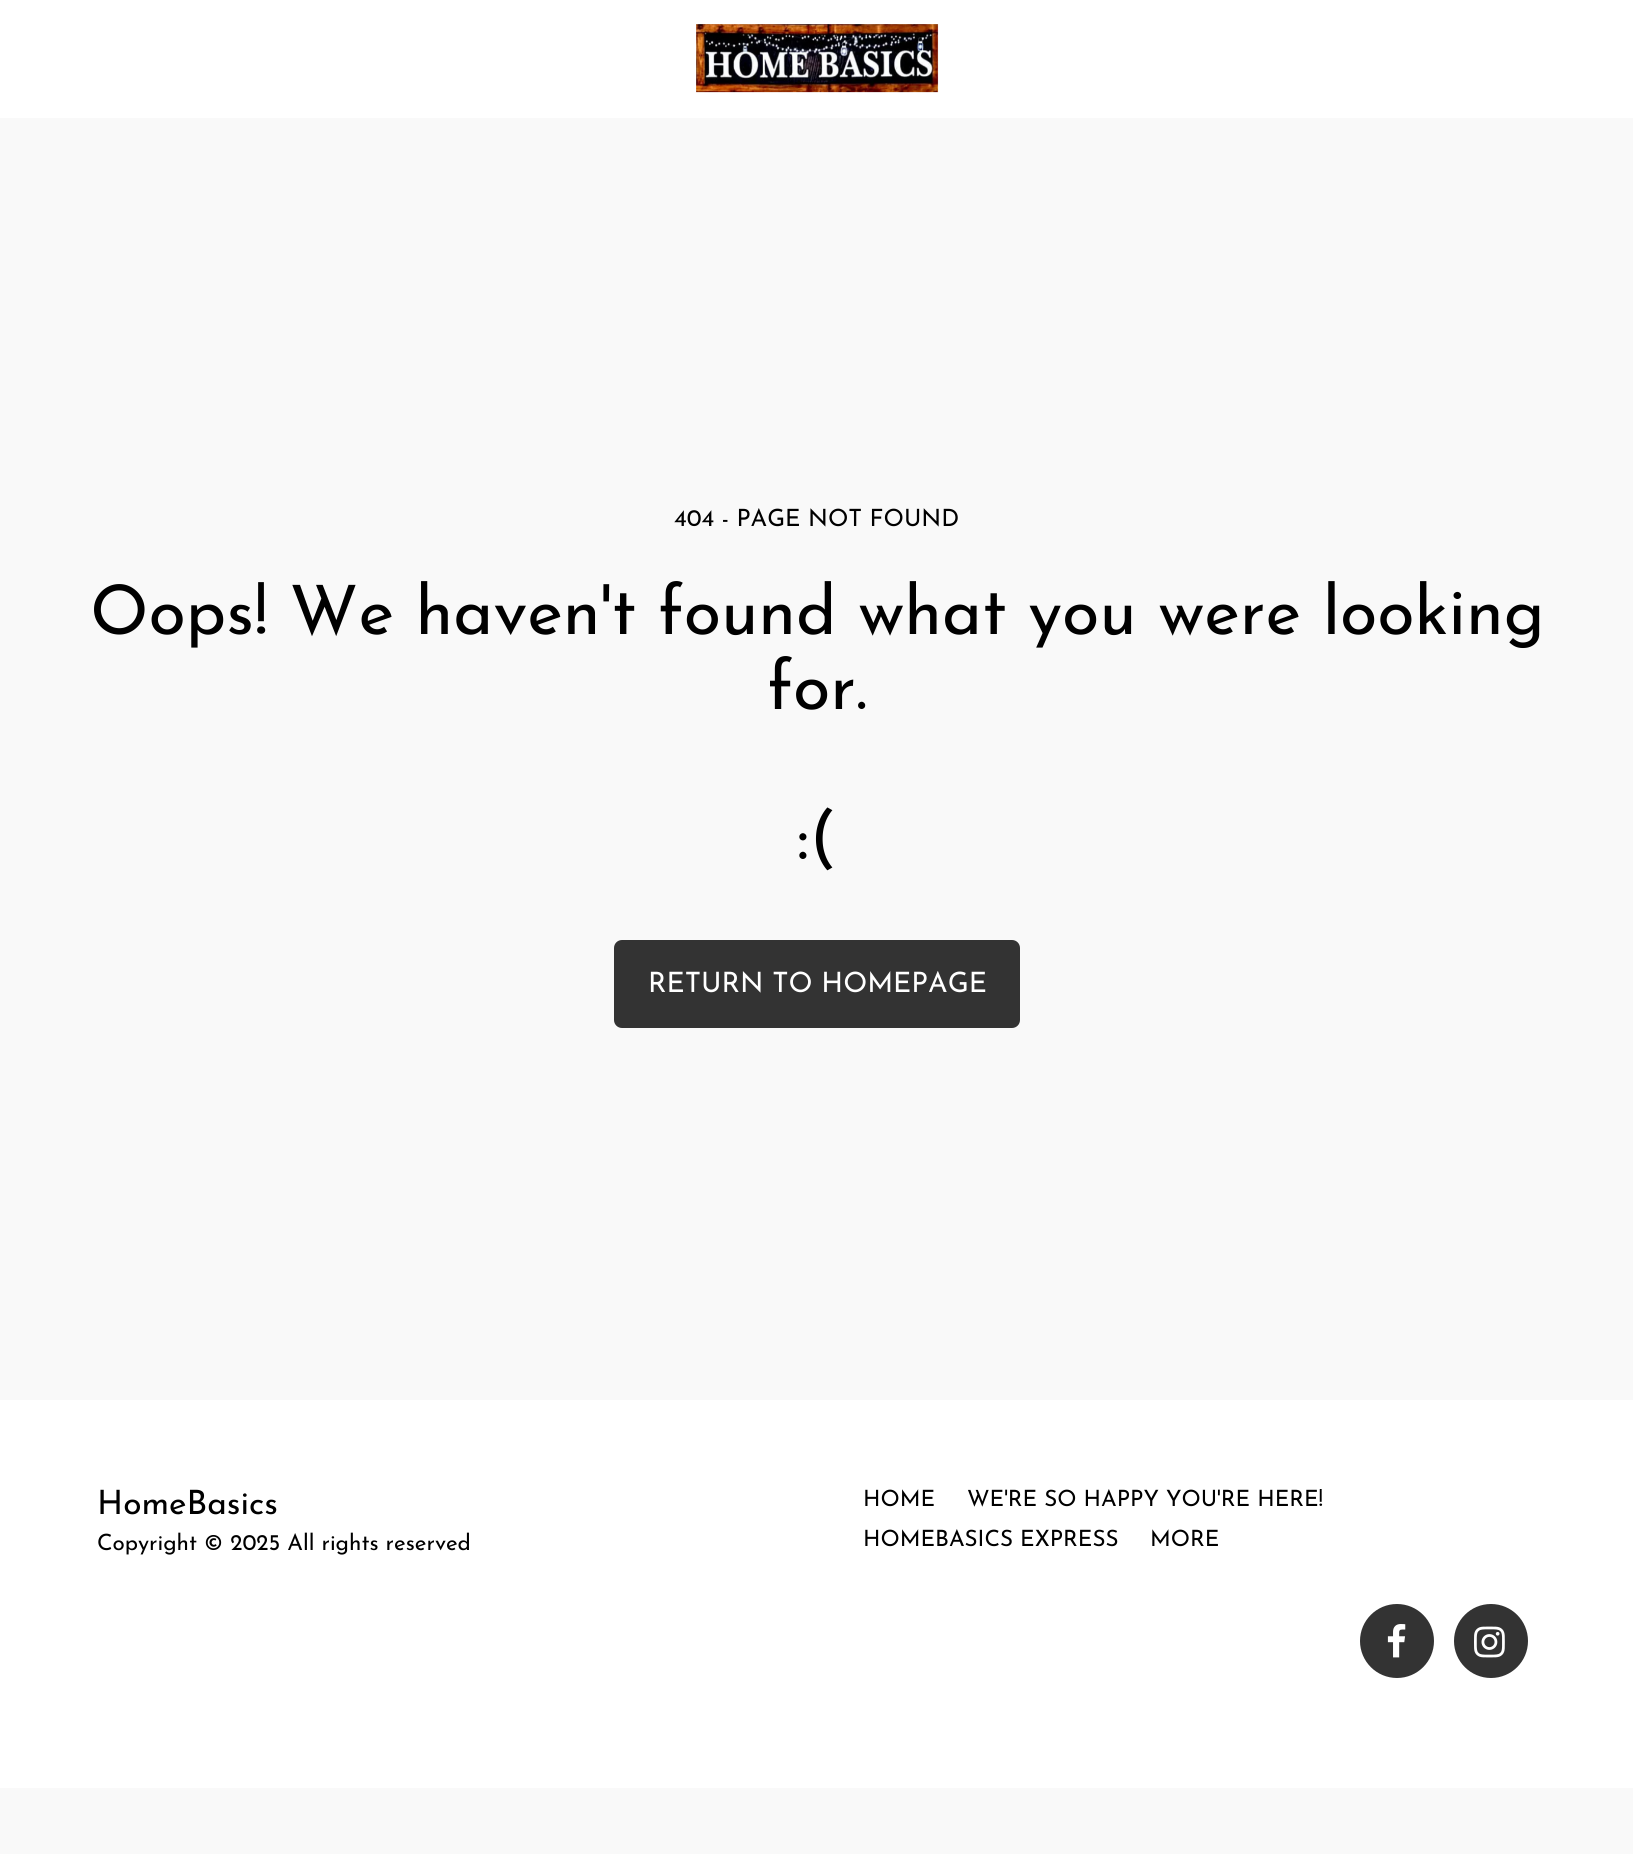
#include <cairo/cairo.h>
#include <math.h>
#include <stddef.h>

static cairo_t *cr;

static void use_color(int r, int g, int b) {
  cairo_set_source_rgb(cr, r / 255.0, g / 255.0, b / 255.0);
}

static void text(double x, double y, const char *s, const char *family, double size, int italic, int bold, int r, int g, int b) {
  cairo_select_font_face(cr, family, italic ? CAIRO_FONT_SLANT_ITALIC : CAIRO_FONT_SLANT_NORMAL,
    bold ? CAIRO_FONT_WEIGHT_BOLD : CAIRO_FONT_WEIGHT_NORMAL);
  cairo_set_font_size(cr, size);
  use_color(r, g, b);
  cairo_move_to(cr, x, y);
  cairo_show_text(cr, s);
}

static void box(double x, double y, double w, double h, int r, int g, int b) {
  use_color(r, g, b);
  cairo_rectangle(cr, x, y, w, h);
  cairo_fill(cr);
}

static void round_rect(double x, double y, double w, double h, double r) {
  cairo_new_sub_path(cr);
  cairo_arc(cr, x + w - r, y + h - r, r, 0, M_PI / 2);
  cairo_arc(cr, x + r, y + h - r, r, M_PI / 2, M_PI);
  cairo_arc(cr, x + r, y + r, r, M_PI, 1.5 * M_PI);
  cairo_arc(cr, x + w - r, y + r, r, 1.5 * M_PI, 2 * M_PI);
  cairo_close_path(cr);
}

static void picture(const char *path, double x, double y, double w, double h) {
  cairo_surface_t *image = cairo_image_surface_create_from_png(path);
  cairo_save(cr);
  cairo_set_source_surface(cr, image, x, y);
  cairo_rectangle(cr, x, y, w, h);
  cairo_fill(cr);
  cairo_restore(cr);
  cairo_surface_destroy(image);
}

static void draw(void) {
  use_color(249, 249, 249);
  cairo_paint(cr);
  box(0, 0, 1633, 118, 255, 255, 255);
  picture("img_01.png", 696, 24, 243, 69);
  use_color(51, 51, 51);
  round_rect(615, 941, 404, 86, 7);
  cairo_fill_preserve(cr);
  cairo_stroke(cr);
  box(0, 1400, 1633, 388, 255, 255, 255);
  use_color(51, 51, 51);
  cairo_arc(cr, 1397, 1641, 36, 0, 2 * M_PI);
  cairo_fill_preserve(cr);
  cairo_stroke(cr);
  picture("img_02.png", 1387, 1624, 19, 34);
  cairo_arc(cr, 1491, 1641, 36, 0, 2 * M_PI);
  cairo_fill_preserve(cr);
  cairo_stroke(cr);
  picture("img_03.png", 1474, 1626, 31, 32);
  text(674, 526, "404 - PAGE NOT FOUND", "Josefin Sans", 23.75, 0, 0, 0, 0, 0);
  text(90, 634, "Oops! We haven't found what you were looking", "Josefin Sans", 68.35, 0, 0, 0, 0, 0);
  text(767, 709, "for.", "Josefin Sans", 68.35, 0, 0, 0, 0, 0);
  text(797, 859, ":(", "Josefin Sans", 68.35, 0, 0, 0, 0, 0);
  text(648, 992, "RETURN TO HOMEPAGE", "Josefin Sans", 28, 0, 0, 255, 255, 255);
  text(97, 1514, "HomeBasics", "Josefin Sans", 33.5, 0, 0, 0, 0, 0);
  text(97, 1550, "Copyright © 2025 All rights reserved", "Josefin Sans", 22.4, 0, 0, 0, 0, 0);
  text(863, 1506, "HOME", "Josefin Sans", 22.4, 0, 0, 0, 0, 0);
  text(967, 1506, "WE'RE SO HAPPY YOU'RE HERE!", "Josefin Sans", 22.4, 0, 0, 0, 0, 0);
  text(863, 1546, "HOMEBASICS EXPRESS", "Josefin Sans", 22.4, 0, 0, 0, 0, 0);
  text(1150, 1546, "MORE", "Josefin Sans", 22.4, 0, 0, 0, 0, 0);
}

int main(void) {
  cairo_surface_t *surface = cairo_image_surface_create(CAIRO_FORMAT_RGB24, 1633, 1854);
  cr = cairo_create(surface);
  cairo_font_options_t *options = cairo_font_options_create();
  cairo_font_options_set_hint_metrics(options, CAIRO_HINT_METRICS_OFF);
  cairo_font_options_set_hint_style(options, CAIRO_HINT_STYLE_NONE);
  cairo_set_font_options(cr, options);
  cairo_set_miter_limit(cr, 4);
  draw();
  cairo_surface_write_to_png(surface, "out.png");
  cairo_font_options_destroy(options);
  cairo_destroy(cr);
  cairo_surface_destroy(surface);
  return 0;
}
